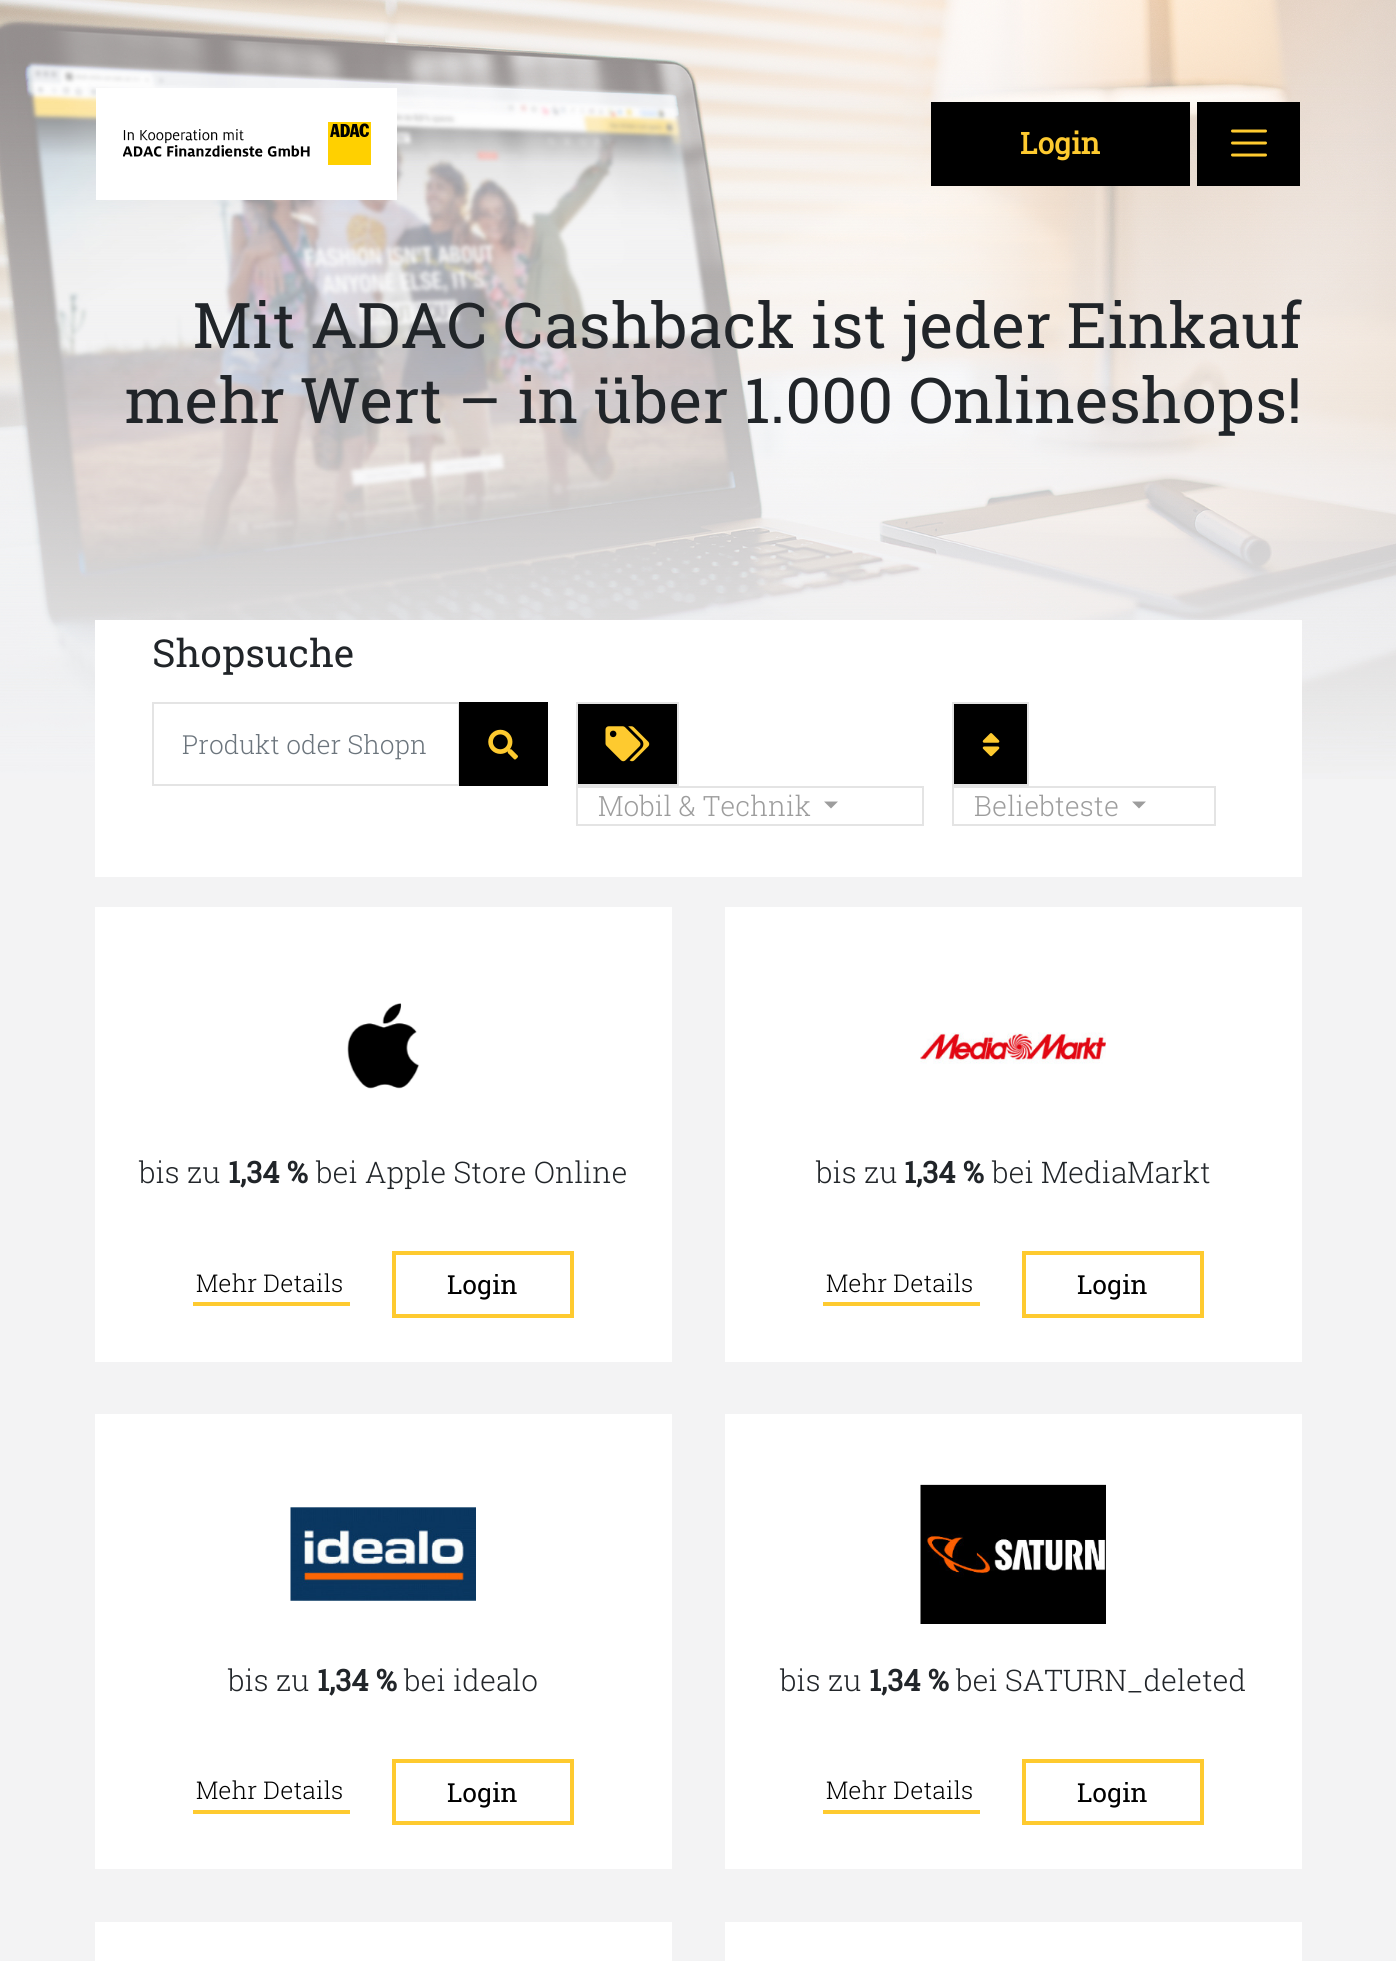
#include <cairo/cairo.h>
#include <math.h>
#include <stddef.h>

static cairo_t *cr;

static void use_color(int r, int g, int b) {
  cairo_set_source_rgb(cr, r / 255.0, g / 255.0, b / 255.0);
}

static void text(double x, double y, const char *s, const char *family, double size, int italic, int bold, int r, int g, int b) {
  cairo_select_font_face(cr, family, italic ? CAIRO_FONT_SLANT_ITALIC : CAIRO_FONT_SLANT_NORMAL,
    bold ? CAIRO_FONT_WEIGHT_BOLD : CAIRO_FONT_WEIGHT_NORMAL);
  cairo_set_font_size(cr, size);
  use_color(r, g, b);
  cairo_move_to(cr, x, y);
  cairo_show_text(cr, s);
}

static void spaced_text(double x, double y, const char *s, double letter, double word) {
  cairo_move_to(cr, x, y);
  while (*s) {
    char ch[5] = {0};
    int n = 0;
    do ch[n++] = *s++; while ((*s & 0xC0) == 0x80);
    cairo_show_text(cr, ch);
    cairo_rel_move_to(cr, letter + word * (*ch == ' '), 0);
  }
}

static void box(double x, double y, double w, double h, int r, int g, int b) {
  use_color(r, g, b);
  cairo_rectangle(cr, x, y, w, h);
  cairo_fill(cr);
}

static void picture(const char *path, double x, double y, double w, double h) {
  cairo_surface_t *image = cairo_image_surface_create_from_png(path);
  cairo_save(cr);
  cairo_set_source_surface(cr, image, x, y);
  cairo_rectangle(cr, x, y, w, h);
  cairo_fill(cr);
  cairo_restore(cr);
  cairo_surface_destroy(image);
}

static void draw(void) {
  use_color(243, 243, 244);
  cairo_paint(cr);
  picture("img_01.png", 0, 0, 1396, 779);
  box(96, 88, 301, 112, 255, 255, 255);
  picture("img_02.png", 123, 122, 248, 43);
  box(931, 102, 259, 84, 0, 0, 0);
  box(1197, 102, 103, 84, 0, 0, 0);
  cairo_new_path(cr);
  cairo_move_to(cr, 1232.5, 131);
  cairo_line_to(cr, 1265.5, 131);
  cairo_move_to(cr, 1232.5, 143);
  cairo_line_to(cr, 1265.5, 143);
  cairo_move_to(cr, 1232.5, 155);
  cairo_line_to(cr, 1265.5, 155);
  use_color(254, 202, 47);
  cairo_set_line_width(cr, 3);
  cairo_set_line_cap(cr, CAIRO_LINE_CAP_ROUND);
  cairo_stroke(cr);
  box(95, 620, 1207, 257, 255, 255, 255);
  cairo_rectangle(cr, 153, 703, 306, 82);
  use_color(228, 228, 228);
  cairo_set_line_width(cr, 2);
  cairo_set_line_cap(cr, CAIRO_LINE_CAP_BUTT);
  cairo_stroke(cr);
  box(459, 702, 89, 84, 0, 0, 0);
  picture("img_03.png", 488, 729, 30, 31);
  cairo_rectangle(cr, 577, 703, 101, 82);
  cairo_fill_preserve(cr);
  use_color(228, 228, 228);
  cairo_stroke(cr);
  picture("img_04.png", 605, 726, 45, 36);
  cairo_rectangle(cr, 577, 787, 346, 38);
  cairo_stroke(cr);
  use_color(157, 157, 157);
  cairo_new_path(cr);
  cairo_move_to(cr, 824, 801.5);
  cairo_line_to(cr, 838, 801.5);
  cairo_line_to(cr, 831, 808.5);
  cairo_close_path(cr);
  cairo_fill(cr);
  use_color(0, 0, 0);
  cairo_rectangle(cr, 953, 703, 75, 82);
  cairo_fill_preserve(cr);
  use_color(228, 228, 228);
  cairo_stroke(cr);
  picture("img_05.png", 982, 733, 18, 24);
  cairo_rectangle(cr, 953, 787, 262, 38);
  cairo_stroke(cr);
  use_color(157, 157, 157);
  cairo_new_path(cr);
  cairo_move_to(cr, 1132, 801.5);
  cairo_line_to(cr, 1146, 801.5);
  cairo_line_to(cr, 1139, 808.5);
  cairo_close_path(cr);
  cairo_fill(cr);
  box(95, 907, 577, 455, 255, 255, 255);
  picture("img_06.png", 347, 1003, 73, 86);
  box(193, 1302, 157, 4, 254, 202, 47);
  cairo_rectangle(cr, 394, 1253, 178, 63);
  cairo_set_line_width(cr, 4);
  cairo_stroke(cr);
  box(725, 907, 577, 455, 255, 255, 255);
  picture("img_07.png", 920, 1032, 186, 32);
  box(823, 1302, 157, 4, 254, 202, 47);
  cairo_rectangle(cr, 1024, 1253, 178, 63);
  cairo_stroke(cr);
  box(95, 1414, 577, 455, 255, 255, 255);
  picture("img_08.png", 290, 1507, 186, 94);
  box(193, 1810, 157, 4, 254, 202, 47);
  cairo_rectangle(cr, 394, 1761, 178, 62);
  cairo_stroke(cr);
  box(725, 1414, 577, 455, 255, 255, 255);
  picture("img_09.png", 920, 1484, 186, 140);
  box(823, 1810, 157, 4, 254, 202, 47);
  cairo_rectangle(cr, 1024, 1761, 178, 62);
  cairo_stroke(cr);
  box(95, 1922, 577, 39, 255, 255, 255);
  box(725, 1922, 577, 39, 255, 255, 255);
  text(1020, 154, "Login", "Roboto Slab", 29.75, 0, 1, 254, 202, 47);
  text(193, 348, "Mit ADAC Cashback ist jeder Einkauf", "Roboto Slab", 63, 0, 0, 33, 37, 41);
  text(125, 423, "mehr Wert – in über 1.000 Onlineshops!", "Roboto Slab", 63, 0, 0, 33, 37, 41);
  text(152, 667, "Shopsuche", "Roboto Slab", 38.5, 0, 0, 33, 37, 41);
  text(182, 754, "Produkt oder Shopn", "Roboto Slab Light", 26.25, 0, 0, 108, 117, 125);
  text(598, 816, "Mobil & Technik", "Roboto Slab Light", 28, 0, 0, 157, 157, 157);
  text(974, 816, "Beliebteste", "Roboto Slab Light", 28, 0, 0, 157, 157, 157);
  text(139, 1183, "bis zu", "Roboto Slab Light", 29.75, 0, 0, 33, 37, 41);
  text(228, 1183, "1,34 %", "Roboto Slab", 29.75, 0, 1, 33, 37, 41);
  text(316, 1183, "bei Apple Store Online", "Roboto Slab Light", 29.75, 0, 0, 33, 37, 41);
  cairo_set_font_size(cr, 24.5);
  use_color(0, 0, 0);
  spaced_text(196, 1292, "Mehr Details", 0.1, 0);
  text(447, 1294, "Login", "Roboto Slab", 26.25, 0, 0, 0, 0, 0);
  text(816, 1183, "bis zu", "Roboto Slab Light", 29.75, 0, 0, 33, 37, 41);
  text(904, 1183, "1,34 %", "Roboto Slab", 29.75, 0, 1, 33, 37, 41);
  text(992, 1183, "bei MediaMarkt", "Roboto Slab Light", 29.75, 0, 0, 33, 37, 41);
  cairo_set_font_size(cr, 24.5);
  use_color(0, 0, 0);
  spaced_text(826, 1292, "Mehr Details", 0.1, 0);
  text(1077, 1294, "Login", "Roboto Slab", 26.25, 0, 0, 0, 0, 0);
  text(228, 1691, "bis zu", "Roboto Slab Light", 29.75, 0, 0, 33, 37, 41);
  text(317, 1691, "1,34 %", "Roboto Slab", 29.75, 0, 1, 33, 37, 41);
  text(404, 1691, "bei idealo", "Roboto Slab Light", 29.75, 0, 0, 33, 37, 41);
  cairo_set_font_size(cr, 24.5);
  use_color(0, 0, 0);
  spaced_text(196, 1799, "Mehr Details", 0.1, 0);
  text(447, 1802, "Login", "Roboto Slab", 26.25, 0, 0, 0, 0, 0);
  text(780, 1691, "bis zu", "Roboto Slab Light", 29.75, 0, 0, 33, 37, 41);
  text(869, 1691, "1,34 %", "Roboto Slab", 29.75, 0, 1, 33, 37, 41);
  text(956, 1691, "bei SATURN_deleted", "Roboto Slab Light", 29.75, 0, 0, 33, 37, 41);
  cairo_set_font_size(cr, 24.5);
  use_color(0, 0, 0);
  spaced_text(826, 1799, "Mehr Details", 0.1, 0);
  text(1077, 1802, "Login", "Roboto Slab", 26.25, 0, 0, 0, 0, 0);
}

int main(void) {
  cairo_surface_t *surface = cairo_image_surface_create(CAIRO_FORMAT_RGB24, 1396, 1961);
  cr = cairo_create(surface);
  cairo_font_options_t *options = cairo_font_options_create();
  cairo_font_options_set_hint_metrics(options, CAIRO_HINT_METRICS_OFF);
  cairo_font_options_set_hint_style(options, CAIRO_HINT_STYLE_NONE);
  cairo_set_font_options(cr, options);
  cairo_set_miter_limit(cr, 4);
  draw();
  cairo_surface_write_to_png(surface, "out.png");
  cairo_font_options_destroy(options);
  cairo_destroy(cr);
  cairo_surface_destroy(surface);
  return 0;
}
